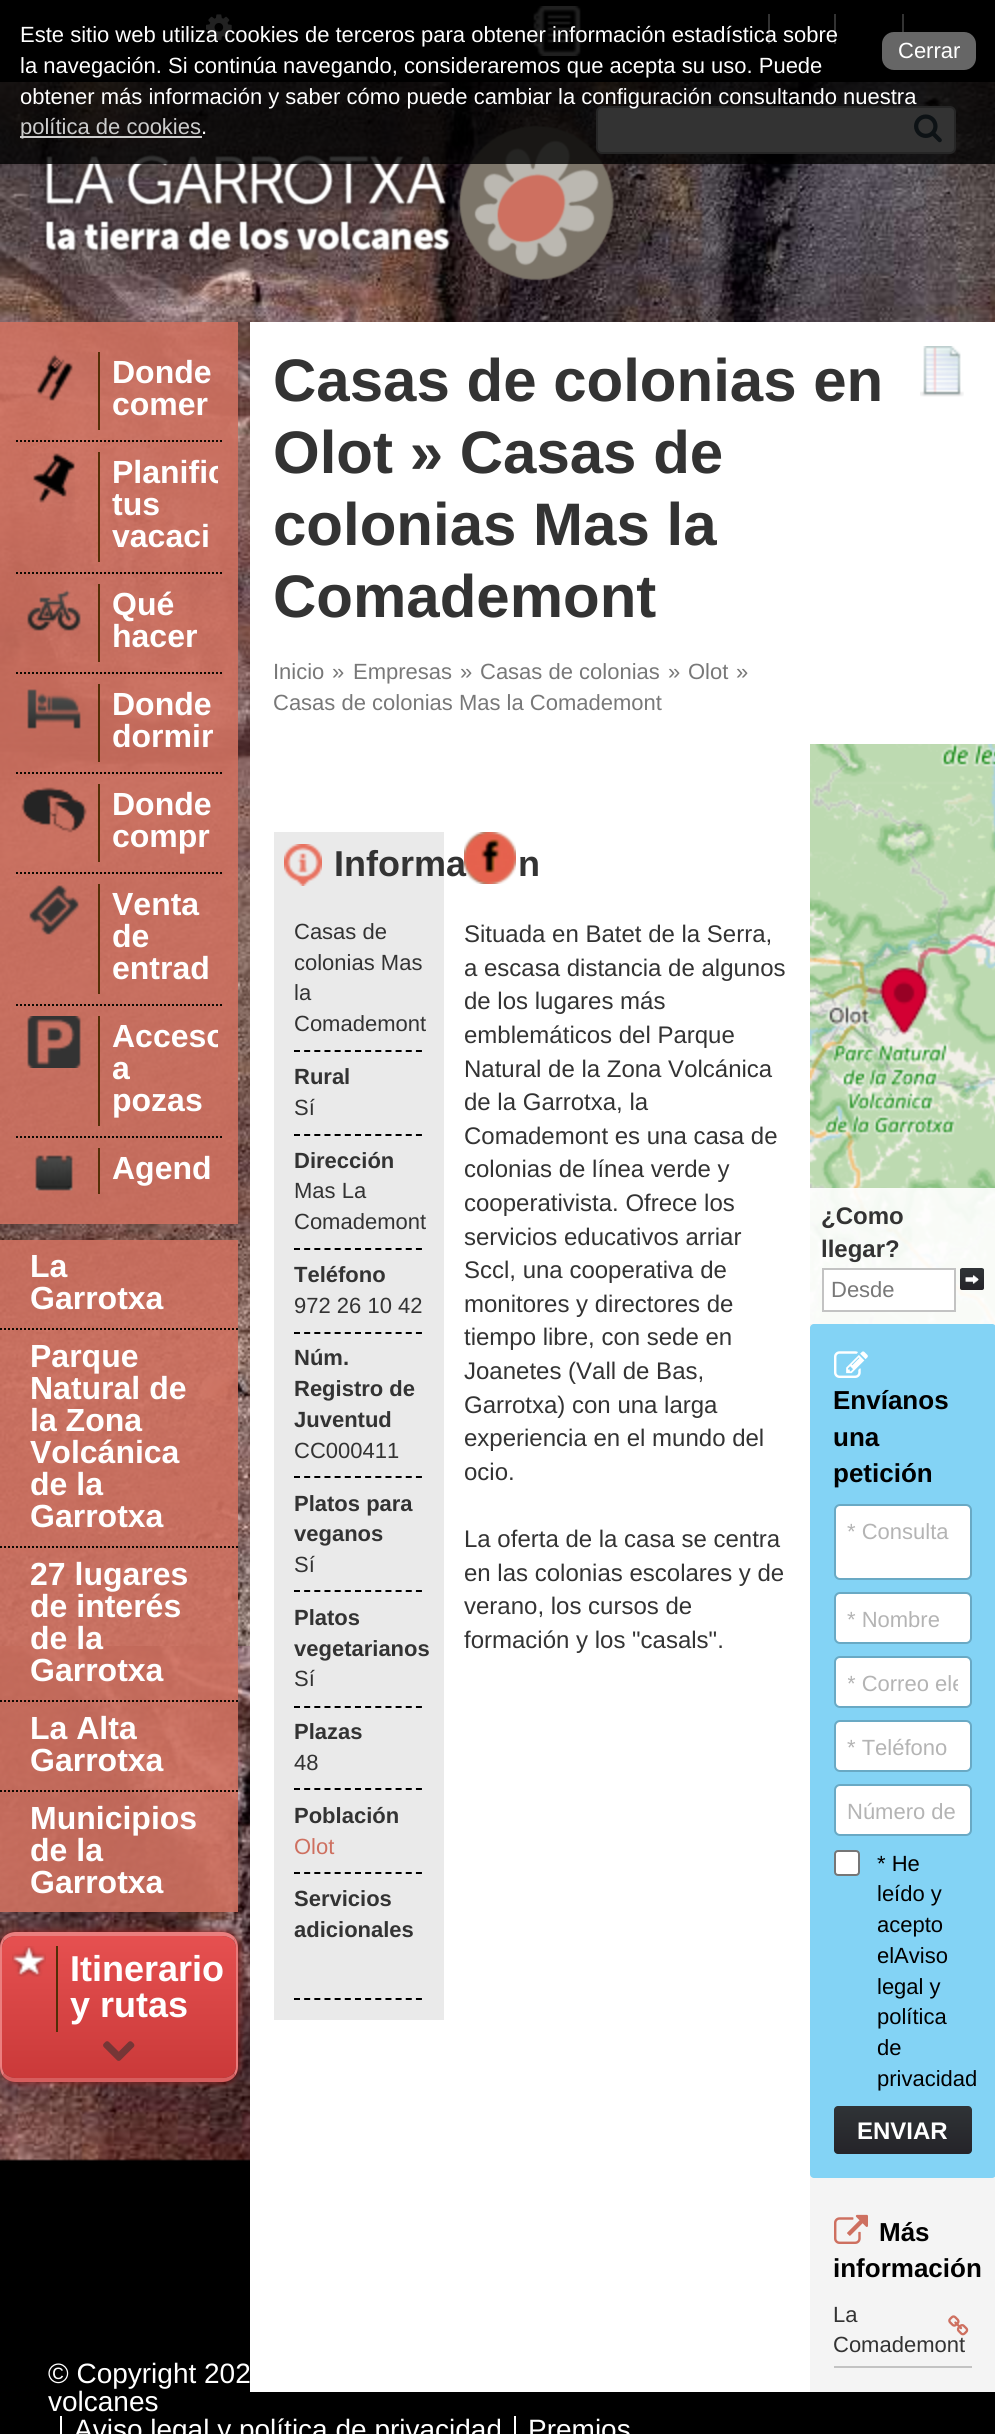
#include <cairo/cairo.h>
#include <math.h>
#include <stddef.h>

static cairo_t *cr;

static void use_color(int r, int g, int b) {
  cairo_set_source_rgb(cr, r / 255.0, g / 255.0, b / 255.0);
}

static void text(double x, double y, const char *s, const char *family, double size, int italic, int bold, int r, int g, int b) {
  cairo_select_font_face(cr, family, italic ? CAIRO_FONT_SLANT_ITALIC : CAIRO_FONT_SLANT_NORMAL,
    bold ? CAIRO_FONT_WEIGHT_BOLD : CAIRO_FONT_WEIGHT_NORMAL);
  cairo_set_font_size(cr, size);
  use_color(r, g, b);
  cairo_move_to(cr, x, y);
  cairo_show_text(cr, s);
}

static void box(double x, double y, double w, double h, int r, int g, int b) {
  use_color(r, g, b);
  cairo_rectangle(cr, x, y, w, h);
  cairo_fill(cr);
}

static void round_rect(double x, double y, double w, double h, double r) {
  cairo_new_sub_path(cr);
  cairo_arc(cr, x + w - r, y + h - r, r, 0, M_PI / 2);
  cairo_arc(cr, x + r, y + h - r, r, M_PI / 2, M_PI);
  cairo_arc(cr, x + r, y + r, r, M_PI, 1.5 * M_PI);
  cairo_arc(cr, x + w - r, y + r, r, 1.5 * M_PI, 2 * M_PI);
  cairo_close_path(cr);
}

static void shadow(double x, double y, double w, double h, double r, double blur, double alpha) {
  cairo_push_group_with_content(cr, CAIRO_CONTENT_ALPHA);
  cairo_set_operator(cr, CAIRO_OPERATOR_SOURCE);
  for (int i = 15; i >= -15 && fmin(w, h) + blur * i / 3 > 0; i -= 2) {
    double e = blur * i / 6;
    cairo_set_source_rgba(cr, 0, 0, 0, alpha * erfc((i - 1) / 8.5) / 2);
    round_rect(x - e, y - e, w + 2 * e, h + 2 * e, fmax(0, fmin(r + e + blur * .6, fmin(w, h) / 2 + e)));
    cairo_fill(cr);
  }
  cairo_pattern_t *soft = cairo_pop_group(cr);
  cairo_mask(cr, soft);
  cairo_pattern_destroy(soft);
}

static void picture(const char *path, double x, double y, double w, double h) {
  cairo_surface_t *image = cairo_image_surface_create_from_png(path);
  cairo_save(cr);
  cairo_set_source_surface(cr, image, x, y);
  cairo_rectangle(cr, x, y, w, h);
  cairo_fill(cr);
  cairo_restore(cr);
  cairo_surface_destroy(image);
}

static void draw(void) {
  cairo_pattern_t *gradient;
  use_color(0, 0, 0);
  cairo_paint(cr);
  picture("img_01.png", 0, 1646, 250, 515);
  picture("img_02.png", 206, 14, 26, 27);
  picture("img_03.png", 533, 6, 48, 50);
  box(768, 14, 2, 30, 255, 255, 255);
  box(834, 14, 2, 30, 255, 255, 255);
  box(902, 14, 2, 18, 255, 255, 255);
  picture("img_04.png", 0, 82, 995, 1564);
  picture("img_05.png", 42, 125, 572, 156);
  round_rect(597, 107, 358, 46, 5);
  cairo_fill_preserve(cr);
  use_color(189, 188, 189);
  cairo_stroke(cr);
  picture("img_06.png", 914, 114, 28, 29);
  cairo_set_source_rgba(cr, 0, 0, 0, 0.8);
  cairo_rectangle(cr, 0, 6, 995, 158);
  cairo_fill(cr);
  use_color(102, 102, 102);
  round_rect(882, 32, 94, 38, 12);
  cairo_fill(cr);
  box(20, 136, 182, 2, 204, 204, 204);
  cairo_set_source_rgba(cr, 0.808, 0.439, 0.376, 0.9);
  cairo_rectangle(cr, 0, 322, 238, 902);
  cairo_fill(cr);
  picture("img_07.png", 36, 354, 37, 47);
  box(98, 352, 2, 78, 83, 46, 7);
  cairo_new_path(cr);
  cairo_move_to(cr, 16, 441);
  cairo_line_to(cr, 222, 441);
  use_color(14, 8, 1);
  cairo_set_dash(cr, (double[]){2, 2}, 2, 0);
  cairo_stroke(cr);
  picture("img_08.png", 33, 453, 42, 50);
  box(98, 452, 2, 110, 83, 46, 7);
  cairo_new_path(cr);
  cairo_move_to(cr, 16, 573);
  cairo_line_to(cr, 222, 573);
  use_color(14, 8, 1);
  cairo_stroke(cr);
  picture("img_09.png", 27, 589, 54, 42);
  box(98, 584, 2, 78, 83, 46, 7);
  cairo_new_path(cr);
  cairo_move_to(cr, 16, 673);
  cairo_line_to(cr, 222, 673);
  use_color(14, 8, 1);
  cairo_stroke(cr);
  picture("img_10.png", 27, 689, 54, 40);
  box(98, 684, 2, 78, 83, 46, 7);
  cairo_new_path(cr);
  cairo_move_to(cr, 16, 773);
  cairo_line_to(cr, 222, 773);
  use_color(14, 8, 1);
  cairo_stroke(cr);
  picture("img_11.png", 21, 787, 66, 46);
  box(98, 784, 2, 78, 83, 46, 7);
  cairo_new_path(cr);
  cairo_move_to(cr, 16, 873);
  cairo_line_to(cr, 222, 873);
  use_color(14, 8, 1);
  cairo_stroke(cr);
  picture("img_12.png", 29, 885, 50, 50);
  box(98, 884, 2, 110, 83, 46, 7);
  cairo_new_path(cr);
  cairo_move_to(cr, 16, 1005);
  cairo_line_to(cr, 222, 1005);
  use_color(14, 8, 1);
  cairo_stroke(cr);
  picture("img_13.png", 27, 1016, 54, 52);
  box(98, 1016, 2, 110, 83, 46, 7);
  cairo_new_path(cr);
  cairo_move_to(cr, 16, 1137);
  cairo_line_to(cr, 222, 1137);
  use_color(14, 8, 1);
  cairo_stroke(cr);
  picture("img_14.png", 35, 1155, 38, 36);
  box(98, 1148, 2, 46, 83, 46, 7);
  cairo_set_source_rgba(cr, 0.808, 0.439, 0.376, 0.9);
  cairo_rectangle(cr, 0, 1240, 238, 672);
  cairo_fill(cr);
  cairo_new_path(cr);
  cairo_move_to(cr, 0, 1329);
  cairo_line_to(cr, 238, 1329);
  use_color(14, 8, 1);
  cairo_stroke(cr);
  cairo_new_path(cr);
  cairo_move_to(cr, 0, 1547);
  cairo_line_to(cr, 238, 1547);
  cairo_stroke(cr);
  cairo_new_path(cr);
  cairo_move_to(cr, 0, 1701);
  cairo_line_to(cr, 238, 1701);
  cairo_stroke(cr);
  cairo_new_path(cr);
  cairo_move_to(cr, 0, 1791);
  cairo_line_to(cr, 238, 1791);
  cairo_stroke(cr);
  use_color(138, 25, 25);
  shadow(0, 1932, 238, 150, 16, 4, 1);
  gradient = cairo_pattern_create_linear(119, 1936, 119, 2078);
  cairo_pattern_add_color_stop_rgba(gradient, 0, 0.902, 0.314, 0.314, 1);
  cairo_pattern_add_color_stop_rgba(gradient, 1, 0.792, 0.224, 0.224, 1);
  cairo_set_source(cr, gradient);
  cairo_pattern_destroy(gradient);
  cairo_new_path(cr);
  cairo_move_to(cr, 16, 1936);
  cairo_line_to(cr, 222, 1936);
  cairo_curve_to(cr, 230, 1936, 236, 1941, 236, 1948);
  cairo_line_to(cr, 236, 2066);
  cairo_curve_to(cr, 236, 2073, 230, 2078, 222, 2078);
  cairo_line_to(cr, 16, 2078);
  cairo_curve_to(cr, 8, 2078, 2, 2073, 2, 2066);
  cairo_line_to(cr, 2, 1948);
  cairo_curve_to(cr, 2, 1941, 8, 1936, 16, 1936);
  cairo_close_path(cr);
  cairo_fill(cr);
  use_color(234, 127, 127);
  cairo_new_path(cr);
  cairo_move_to(cr, 16, 1932);
  cairo_curve_to(cr, 11, 1932, 6, 1934, 3, 1938);
  cairo_line_to(cr, 4, 1941);
  cairo_curve_to(cr, 7, 1938, 11, 1936, 16, 1936);
  cairo_line_to(cr, 222, 1936);
  cairo_curve_to(cr, 227, 1936, 231, 1938, 234, 1941);
  cairo_line_to(cr, 235, 1938);
  cairo_curve_to(cr, 232, 1934, 227, 1932, 222, 1932);
  cairo_close_path(cr);
  cairo_fill(cr);
  use_color(233, 122, 122);
  cairo_new_path(cr);
  cairo_move_to(cr, 238, 2066);
  cairo_line_to(cr, 238, 1948);
  cairo_curve_to(cr, 238, 1944, 237, 1941, 235, 1938);
  cairo_line_to(cr, 234, 1941);
  cairo_curve_to(cr, 235, 1943, 236, 1945, 236, 1948);
  cairo_line_to(cr, 236, 2066);
  cairo_curve_to(cr, 236, 2069, 235, 2071, 234, 2073);
  cairo_line_to(cr, 235, 2076);
  cairo_curve_to(cr, 237, 2073, 238, 2070, 238, 2066);
  cairo_close_path(cr);
  cairo_fill(cr);
  use_color(214, 94, 94);
  cairo_new_path(cr);
  cairo_move_to(cr, 16, 2082);
  cairo_line_to(cr, 222, 2082);
  cairo_curve_to(cr, 227, 2082, 232, 2080, 235, 2076);
  cairo_line_to(cr, 234, 2073);
  cairo_curve_to(cr, 231, 2076, 227, 2078, 222, 2078);
  cairo_line_to(cr, 16, 2078);
  cairo_curve_to(cr, 11, 2078, 7, 2076, 4, 2073);
  cairo_line_to(cr, 3, 2076);
  cairo_curve_to(cr, 6, 2080, 11, 2082, 16, 2082);
  cairo_close_path(cr);
  cairo_fill(cr);
  use_color(235, 127, 127);
  cairo_new_path(cr);
  cairo_move_to(cr, 0, 1948);
  cairo_line_to(cr, 0, 2066);
  cairo_curve_to(cr, 0, 2070, 1, 2073, 3, 2076);
  cairo_line_to(cr, 4, 2073);
  cairo_curve_to(cr, 3, 2071, 2, 2069, 2, 2066);
  cairo_line_to(cr, 2, 1948);
  cairo_curve_to(cr, 2, 1945, 3, 1943, 4, 1941);
  cairo_line_to(cr, 3, 1938);
  cairo_curve_to(cr, 1, 1941, 0, 1944, 0, 1948);
  cairo_close_path(cr);
  cairo_fill(cr);
  picture("img_15.png", 12, 1946, 34, 31);
  box(56, 1946, 2, 86, 83, 46, 7);
  picture("img_16.png", 103, 2041, 32, 20);
  box(250, 322, 745, 2070, 255, 255, 255);
  picture("img_17.png", 920, 346, 44, 51);
  box(274, 832, 170, 1188, 234, 234, 234);
  picture("img_18.png", 284, 844, 38, 42);
  cairo_new_path(cr);
  cairo_move_to(cr, 294, 1051);
  cairo_line_to(cr, 422, 1051);
  use_color(0, 0, 0);
  cairo_set_dash(cr, (double[]){6, 4.16}, 2, 0);
  cairo_stroke(cr);
  cairo_new_path(cr);
  cairo_move_to(cr, 294, 1135);
  cairo_line_to(cr, 422, 1135);
  cairo_stroke(cr);
  cairo_new_path(cr);
  cairo_move_to(cr, 294, 1249);
  cairo_line_to(cr, 422, 1249);
  cairo_stroke(cr);
  cairo_new_path(cr);
  cairo_move_to(cr, 294, 1333);
  cairo_line_to(cr, 422, 1333);
  cairo_stroke(cr);
  cairo_new_path(cr);
  cairo_move_to(cr, 294, 1477);
  cairo_line_to(cr, 422, 1477);
  cairo_stroke(cr);
  cairo_new_path(cr);
  cairo_move_to(cr, 294, 1591);
  cairo_line_to(cr, 422, 1591);
  cairo_stroke(cr);
  cairo_new_path(cr);
  cairo_move_to(cr, 294, 1707);
  cairo_line_to(cr, 422, 1707);
  cairo_stroke(cr);
  cairo_new_path(cr);
  cairo_move_to(cr, 294, 1789);
  cairo_line_to(cr, 422, 1789);
  cairo_stroke(cr);
  cairo_new_path(cr);
  cairo_move_to(cr, 294, 1873);
  cairo_line_to(cr, 422, 1873);
  cairo_stroke(cr);
  cairo_new_path(cr);
  cairo_move_to(cr, 294, 1999);
  cairo_line_to(cr, 422, 1999);
  cairo_stroke(cr);
  box(810, 1324, 185, 1068, 244, 244, 244);
  picture("img_20.png", 810, 744, 185, 580);
  cairo_set_source_rgba(cr, 1, 1, 1, 0.9);
  cairo_rectangle(cr, 810, 1188, 185, 136);
  cairo_fill(cr);
  use_color(255, 255, 255);
  cairo_rectangle(cr, 823, 1269, 132, 42);
  cairo_fill_preserve(cr);
  use_color(195, 195, 195);
  cairo_set_dash(cr, NULL, 0, 0);
  cairo_stroke(cr);
  picture("img_21.png", 960, 1268, 24, 22);
  use_color(131, 211, 245);
  round_rect(810, 1324, 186, 854, 4);
  cairo_fill(cr);
  picture("img_22.png", 834, 1351, 34, 27);
  use_color(255, 255, 255);
  round_rect(835, 1505, 136, 74, 5);
  cairo_fill_preserve(cr);
  use_color(105, 169, 196);
  cairo_stroke(cr);
  use_color(255, 255, 255);
  round_rect(835, 1593, 136, 50, 5);
  cairo_fill_preserve(cr);
  use_color(105, 169, 196);
  cairo_stroke(cr);
  use_color(255, 255, 255);
  round_rect(835, 1657, 136, 50, 5);
  cairo_fill_preserve(cr);
  use_color(105, 169, 196);
  cairo_stroke(cr);
  use_color(255, 255, 255);
  round_rect(835, 1721, 136, 50, 5);
  cairo_fill_preserve(cr);
  use_color(105, 169, 196);
  cairo_stroke(cr);
  use_color(255, 255, 255);
  round_rect(835, 1785, 136, 50, 5);
  cairo_fill_preserve(cr);
  use_color(105, 169, 196);
  cairo_stroke(cr);
  use_color(255, 255, 255);
  round_rect(835, 1851, 24, 24, 3);
  cairo_fill_preserve(cr);
  use_color(118, 118, 118);
  cairo_stroke(cr);
  gradient = cairo_pattern_create_linear(903, 2106, 903, 2154);
  cairo_pattern_add_color_stop_rgba(gradient, 0, 0.184, 0.2, 0.212, 1);
  cairo_pattern_add_color_stop_rgba(gradient, 1, 0.145, 0.141, 0.161, 1);
  cairo_set_source(cr, gradient);
  cairo_pattern_destroy(gradient);
  round_rect(834, 2106, 138, 48, 4);
  cairo_fill(cr);
  picture("img_23.png", 834, 2214, 34, 30);
  box(834, 2366, 138, 2, 195, 195, 195);
  picture("img_24.png", 948, 2315, 21, 21);
  box(60, 2416, 2, 18, 255, 255, 255);
  box(514, 2416, 2, 18, 255, 255, 255);
  text(20, 42, "Este sitio web utiliza cookies de terceros para obtener información estadística sobre", "Liberation Sans", 22, 0, 0, 255, 255, 255);
  text(898, 58, "Cerrar", "Liberation Sans", 22, 0, 0, 255, 255, 255);
  text(20, 73, "la navegación. Si continúa navegando, consideraremos que acepta su uso. Puede", "Liberation Sans", 22, 0, 0, 255, 255, 255);
  text(20, 104, "obtener más información y saber cómo puede cambiar la configuración consultando nuestra", "Liberation Sans", 22, 0, 0, 255, 255, 255);
  text(20, 134, "política de cookies", "Liberation Sans", 22, 0, 0, 204, 204, 204);
  text(201, 134, ".", "Liberation Sans", 22, 0, 0, 255, 255, 255);
  text(112, 383, "Donde", "Liberation Sans", 32, 0, 1, 255, 255, 255);
  text(112, 415, "comer", "Liberation Sans", 32, 0, 1, 255, 255, 255);
  cairo_save(cr);
  cairo_rectangle(cr, 100, 452, 118, 110);
  cairo_clip(cr);
  text(112, 483, "Planific", "Liberation Sans", 32, 0, 1, 255, 255, 255);
  cairo_restore(cr);
  text(112, 515, "tus", "Liberation Sans", 32, 0, 1, 255, 255, 255);
  text(112, 547, "vacaci", "Liberation Sans", 32, 0, 1, 255, 255, 255);
  text(112, 615, "Qué", "Liberation Sans", 32, 0, 1, 255, 255, 255);
  text(112, 647, "hacer", "Liberation Sans", 32, 0, 1, 255, 255, 255);
  text(112, 715, "Donde", "Liberation Sans", 32, 0, 1, 255, 255, 255);
  text(112, 747, "dormir", "Liberation Sans", 32, 0, 1, 255, 255, 255);
  text(112, 815, "Donde", "Liberation Sans", 32, 0, 1, 255, 255, 255);
  text(112, 847, "compr", "Liberation Sans", 32, 0, 1, 255, 255, 255);
  text(112, 915, "Venta", "Liberation Sans", 32, 0, 1, 255, 255, 255);
  text(112, 947, "de", "Liberation Sans", 32, 0, 1, 255, 255, 255);
  text(112, 979, "entrad", "Liberation Sans", 32, 0, 1, 255, 255, 255);
  cairo_save(cr);
  cairo_rectangle(cr, 100, 1016, 118, 110);
  cairo_clip(cr);
  text(112, 1047, "Acceso", "Liberation Sans", 32, 0, 1, 255, 255, 255);
  cairo_restore(cr);
  text(112, 1079, "a", "Liberation Sans", 32, 0, 1, 255, 255, 255);
  text(112, 1111, "pozas", "Liberation Sans", 32, 0, 1, 255, 255, 255);
  text(112, 1179, "Agend", "Liberation Sans", 32, 0, 1, 255, 255, 255);
  text(30, 1277, "La", "Liberation Sans", 32, 0, 1, 255, 255, 255);
  text(30, 1309, "Garrotxa", "Liberation Sans", 32, 0, 1, 255, 255, 255);
  text(30, 1367, "Parque", "Liberation Sans", 32, 0, 1, 255, 255, 255);
  text(30, 1399, "Natural de", "Liberation Sans", 32, 0, 1, 255, 255, 255);
  text(30, 1431, "la Zona", "Liberation Sans", 32, 0, 1, 255, 255, 255);
  text(30, 1463, "Volcánica", "Liberation Sans", 32, 0, 1, 255, 255, 255);
  text(30, 1495, "de la", "Liberation Sans", 32, 0, 1, 255, 255, 255);
  text(30, 1527, "Garrotxa", "Liberation Sans", 32, 0, 1, 255, 255, 255);
  text(30, 1585, "27 lugares", "Liberation Sans", 32, 0, 1, 255, 255, 255);
  text(30, 1617, "de interés", "Liberation Sans", 32, 0, 1, 255, 255, 255);
  text(30, 1649, "de la", "Liberation Sans", 32, 0, 1, 255, 255, 255);
  text(30, 1681, "Garrotxa", "Liberation Sans", 32, 0, 1, 255, 255, 255);
  text(30, 1739, "La Alta", "Liberation Sans", 32, 0, 1, 255, 255, 255);
  text(30, 1771, "Garrotxa", "Liberation Sans", 32, 0, 1, 255, 255, 255);
  text(30, 1829, "Municipios", "Liberation Sans", 32, 0, 1, 255, 255, 255);
  text(30, 1861, "de la", "Liberation Sans", 32, 0, 1, 255, 255, 255);
  text(30, 1893, "Garrotxa", "Liberation Sans", 32, 0, 1, 255, 255, 255);
  text(70, 1981, "Itinerario", "Liberation Sans", 36, 0, 1, 255, 255, 255);
  text(70, 2017, "y rutas", "Liberation Sans", 36, 0, 1, 255, 255, 255);
  text(273, 401, "Casas de colonias en", "Liberation Sans", 60, 0, 1, 51, 51, 51);
  text(273, 473, "Olot » Casas de", "Liberation Sans", 60, 0, 1, 51, 51, 51);
  text(273, 545, "colonias Mas la", "Liberation Sans", 60, 0, 1, 51, 51, 51);
  text(273, 617, "Comademont", "Liberation Sans", 60, 0, 1, 51, 51, 51);
  text(273, 679, "Inicio", "Liberation Sans", 22, 0, 0, 120, 120, 120);
  text(332, 679, "»", "Liberation Sans", 22, 0, 0, 120, 120, 120);
  text(353, 679, "Empresas", "Liberation Sans", 22, 0, 0, 120, 120, 120);
  text(460, 679, "»", "Liberation Sans", 22, 0, 0, 120, 120, 120);
  text(480, 679, "Casas de colonias", "Liberation Sans", 22, 0, 0, 120, 120, 120);
  text(668, 679, "»", "Liberation Sans", 22, 0, 0, 120, 120, 120);
  text(688, 679, "Olot", "Liberation Sans", 22, 0, 0, 120, 120, 120);
  text(736, 679, "»", "Liberation Sans", 22, 0, 0, 120, 120, 120);
  text(273, 710, "Casas de colonias Mas la Comademont", "Liberation Sans", 22, 0, 0, 120, 120, 120);
  text(334, 876, "Informa", "Liberation Sans", 36, 0, 1, 51, 51, 51);
  text(518, 876, "n", "Liberation Sans", 36, 0, 1, 51, 51, 51);
  text(294, 939, "Casas de", "Liberation Sans", 22, 0, 0, 51, 51, 51);
  text(294, 970, "colonias Mas", "Liberation Sans", 22, 0, 0, 51, 51, 51);
  text(294, 1000, "la", "Liberation Sans", 22, 0, 0, 51, 51, 51);
  text(294, 1031, "Comademont", "Liberation Sans", 22, 0, 0, 51, 51, 51);
  text(294, 1084, "Rural", "Liberation Sans", 22, 0, 1, 51, 51, 51);
  text(294, 1115, "Sí", "Liberation Sans", 22, 0, 0, 51, 51, 51);
  text(294, 1168, "Dirección", "Liberation Sans", 22, 0, 1, 51, 51, 51);
  text(294, 1198, "Mas La", "Liberation Sans", 22, 0, 0, 51, 51, 51);
  text(294, 1229, "Comademont", "Liberation Sans", 22, 0, 0, 51, 51, 51);
  text(294, 1282, "Teléfono", "Liberation Sans", 22, 0, 1, 51, 51, 51);
  text(294, 1313, "972 26 10 42", "Liberation Sans", 22, 0, 0, 51, 51, 51);
  text(294, 1365, "Núm.", "Liberation Sans", 22, 0, 1, 51, 51, 51);
  text(294, 1396, "Registro de", "Liberation Sans", 22, 0, 1, 51, 51, 51);
  text(294, 1427, "Juventud", "Liberation Sans", 22, 0, 1, 51, 51, 51);
  text(294, 1458, "CC000411", "Liberation Sans", 22, 0, 0, 51, 51, 51);
  text(294, 1511, "Platos para", "Liberation Sans", 22, 0, 1, 51, 51, 51);
  text(294, 1541, "veganos", "Liberation Sans", 22, 0, 1, 51, 51, 51);
  text(294, 1572, "Sí", "Liberation Sans", 22, 0, 0, 51, 51, 51);
  text(294, 1625, "Platos", "Liberation Sans", 22, 0, 1, 51, 51, 51);
  text(294, 1656, "vegetarianos", "Liberation Sans", 22, 0, 1, 51, 51, 51);
  text(294, 1686, "Sí", "Liberation Sans", 22, 0, 0, 51, 51, 51);
  text(294, 1739, "Plazas", "Liberation Sans", 22, 0, 1, 51, 51, 51);
  text(294, 1770, "48", "Liberation Sans", 22, 0, 0, 51, 51, 51);
  text(294, 1823, "Población", "Liberation Sans", 22, 0, 1, 51, 51, 51);
  text(294, 1854, "Olot", "Liberation Sans", 22, 0, 0, 206, 112, 96);
  text(294, 1906, "Servicios", "Liberation Sans", 22, 0, 1, 51, 51, 51);
  text(294, 1937, "adicionales", "Liberation Sans", 22, 0, 1, 51, 51, 51);
  picture("img_19.png", 464, 832, 52, 52);
  text(464, 942, "Situada en Batet de la Serra,", "Liberation Sans", 24, 0, 0, 51, 51, 51);
  text(464, 976, "a escasa distancia de algunos", "Liberation Sans", 24, 0, 0, 51, 51, 51);
  text(464, 1009, "de los lugares más", "Liberation Sans", 24, 0, 0, 51, 51, 51);
  text(464, 1043, "emblemáticos del Parque", "Liberation Sans", 24, 0, 0, 51, 51, 51);
  text(464, 1077, "Natural de la Zona Volcánica", "Liberation Sans", 24, 0, 0, 51, 51, 51);
  text(464, 1110, "de la Garrotxa, la", "Liberation Sans", 24, 0, 0, 51, 51, 51);
  text(464, 1144, "Comademont es una casa de", "Liberation Sans", 24, 0, 0, 51, 51, 51);
  text(464, 1177, "colonias de línea verde y", "Liberation Sans", 24, 0, 0, 51, 51, 51);
  text(464, 1211, "cooperativista. Ofrece los", "Liberation Sans", 24, 0, 0, 51, 51, 51);
  text(464, 1245, "servicios educativos arriar", "Liberation Sans", 24, 0, 0, 51, 51, 51);
  text(464, 1278, "Sccl, una cooperativa de", "Liberation Sans", 24, 0, 0, 51, 51, 51);
  text(464, 1312, "monitores y directores de", "Liberation Sans", 24, 0, 0, 51, 51, 51);
  text(464, 1345, "tiempo libre, con sede en", "Liberation Sans", 24, 0, 0, 51, 51, 51);
  text(464, 1379, "Joanetes (Vall de Bas,", "Liberation Sans", 24, 0, 0, 51, 51, 51);
  text(464, 1413, "Garrotxa) con una larga", "Liberation Sans", 24, 0, 0, 51, 51, 51);
  text(464, 1446, "experiencia en el mundo del", "Liberation Sans", 24, 0, 0, 51, 51, 51);
  text(464, 1480, "ocio.", "Liberation Sans", 24, 0, 0, 51, 51, 51);
  text(464, 1547, "La oferta de la casa se centra", "Liberation Sans", 24, 0, 0, 51, 51, 51);
  text(464, 1581, "en las colonias escolares y de", "Liberation Sans", 24, 0, 0, 51, 51, 51);
  text(464, 1614, "verano, los cursos de", "Liberation Sans", 24, 0, 0, 51, 51, 51);
  text(464, 1648, "formación y los \"casals\".", "Liberation Sans", 24, 0, 0, 51, 51, 51);
  text(821, 1224, "¿Como", "Liberation Sans", 24, 0, 1, 51, 51, 51);
  text(821, 1257, "llegar?", "Liberation Sans", 24, 0, 1, 51, 51, 51);
  text(831, 1297, "Desde", "Liberation Sans", 22, 0, 0, 120, 120, 120);
  text(833, 1409, "Envíanos", "Liberation Sans", 26, 0, 1, 0, 0, 0);
  text(833, 1446, "una", "Liberation Sans", 26, 0, 1, 0, 0, 0);
  text(833, 1482, "petición", "Liberation Sans", 26, 0, 1, 0, 0, 0);
  text(847, 1539, "* Consulta", "Liberation Sans", 22, 0, 0, 180, 180, 180);
  text(847, 1627, "* Nombre", "Liberation Sans", 22, 0, 0, 180, 180, 180);
  cairo_save(cr);
  cairo_rectangle(cr, 848, 1670, 110, 24);
  cairo_clip(cr);
  text(847, 1691, "* Correo ele", "Liberation Sans", 22, 0, 0, 180, 180, 180);
  cairo_restore(cr);
  text(847, 1755, "* Teléfono", "Liberation Sans", 22, 0, 0, 180, 180, 180);
  text(847, 1819, "Número de", "Liberation Sans", 22, 0, 0, 180, 180, 180);
  text(877, 1871, "* He", "Liberation Sans", 22, 0, 0, 0, 0, 0);
  text(877, 1901, "leído y", "Liberation Sans", 22, 0, 0, 0, 0, 0);
  text(877, 1932, "acepto", "Liberation Sans", 22, 0, 0, 0, 0, 0);
  text(877, 1963, "elAviso", "Liberation Sans", 22, 0, 0, 0, 0, 0);
  text(877, 1994, "legal y", "Liberation Sans", 22, 0, 0, 0, 0, 0);
  text(877, 2024, "política", "Liberation Sans", 22, 0, 0, 0, 0, 0);
  text(877, 2055, "de", "Liberation Sans", 22, 0, 0, 0, 0, 0);
  text(877, 2086, "privacidad", "Liberation Sans", 22, 0, 0, 0, 0, 0);
  text(857, 2139, "ENVIAR", "Liberation Sans", 24, 0, 1, 255, 255, 255);
  text(879, 2241, "Más", "Liberation Sans", 26, 0, 1, 0, 0, 0);
  text(833, 2277, "información", "Liberation Sans", 26, 0, 1, 0, 0, 0);
  text(833, 2322, "La", "Liberation Sans", 22, 0, 0, 51, 51, 51);
  text(833, 2352, "Comademont", "Liberation Sans", 22, 0, 0, 51, 51, 51);
  text(48, 2383, "© Copyright 202", "Liberation Sans", 28, 0, 0, 255, 255, 255);
  text(48, 2411, "volcanes", "Liberation Sans", 28, 0, 0, 255, 255, 255);
  text(74, 2439, "Aviso legal y política de privacidad", "Liberation Sans", 28, 0, 0, 255, 255, 255);
  text(528, 2439, "Premios", "Liberation Sans", 28, 0, 0, 255, 255, 255);
}

int main(void) {
  cairo_surface_t *surface = cairo_image_surface_create(CAIRO_FORMAT_RGB24, 995, 2434);
  cr = cairo_create(surface);
  cairo_font_options_t *options = cairo_font_options_create();
  cairo_font_options_set_hint_metrics(options, CAIRO_HINT_METRICS_OFF);
  cairo_font_options_set_hint_style(options, CAIRO_HINT_STYLE_NONE);
  cairo_set_font_options(cr, options);
  cairo_set_miter_limit(cr, 4);
  draw();
  cairo_surface_write_to_png(surface, "out.png");
  cairo_font_options_destroy(options);
  cairo_destroy(cr);
  cairo_surface_destroy(surface);
  return 0;
}
